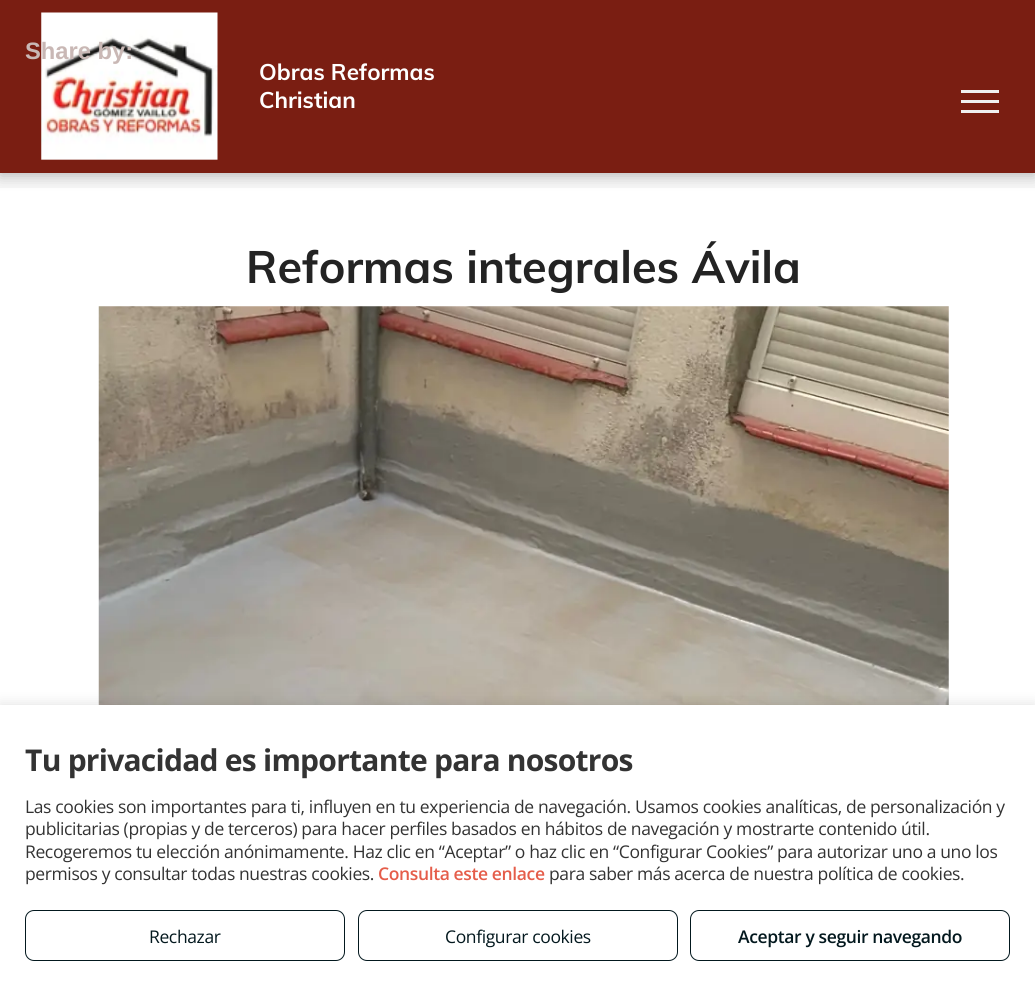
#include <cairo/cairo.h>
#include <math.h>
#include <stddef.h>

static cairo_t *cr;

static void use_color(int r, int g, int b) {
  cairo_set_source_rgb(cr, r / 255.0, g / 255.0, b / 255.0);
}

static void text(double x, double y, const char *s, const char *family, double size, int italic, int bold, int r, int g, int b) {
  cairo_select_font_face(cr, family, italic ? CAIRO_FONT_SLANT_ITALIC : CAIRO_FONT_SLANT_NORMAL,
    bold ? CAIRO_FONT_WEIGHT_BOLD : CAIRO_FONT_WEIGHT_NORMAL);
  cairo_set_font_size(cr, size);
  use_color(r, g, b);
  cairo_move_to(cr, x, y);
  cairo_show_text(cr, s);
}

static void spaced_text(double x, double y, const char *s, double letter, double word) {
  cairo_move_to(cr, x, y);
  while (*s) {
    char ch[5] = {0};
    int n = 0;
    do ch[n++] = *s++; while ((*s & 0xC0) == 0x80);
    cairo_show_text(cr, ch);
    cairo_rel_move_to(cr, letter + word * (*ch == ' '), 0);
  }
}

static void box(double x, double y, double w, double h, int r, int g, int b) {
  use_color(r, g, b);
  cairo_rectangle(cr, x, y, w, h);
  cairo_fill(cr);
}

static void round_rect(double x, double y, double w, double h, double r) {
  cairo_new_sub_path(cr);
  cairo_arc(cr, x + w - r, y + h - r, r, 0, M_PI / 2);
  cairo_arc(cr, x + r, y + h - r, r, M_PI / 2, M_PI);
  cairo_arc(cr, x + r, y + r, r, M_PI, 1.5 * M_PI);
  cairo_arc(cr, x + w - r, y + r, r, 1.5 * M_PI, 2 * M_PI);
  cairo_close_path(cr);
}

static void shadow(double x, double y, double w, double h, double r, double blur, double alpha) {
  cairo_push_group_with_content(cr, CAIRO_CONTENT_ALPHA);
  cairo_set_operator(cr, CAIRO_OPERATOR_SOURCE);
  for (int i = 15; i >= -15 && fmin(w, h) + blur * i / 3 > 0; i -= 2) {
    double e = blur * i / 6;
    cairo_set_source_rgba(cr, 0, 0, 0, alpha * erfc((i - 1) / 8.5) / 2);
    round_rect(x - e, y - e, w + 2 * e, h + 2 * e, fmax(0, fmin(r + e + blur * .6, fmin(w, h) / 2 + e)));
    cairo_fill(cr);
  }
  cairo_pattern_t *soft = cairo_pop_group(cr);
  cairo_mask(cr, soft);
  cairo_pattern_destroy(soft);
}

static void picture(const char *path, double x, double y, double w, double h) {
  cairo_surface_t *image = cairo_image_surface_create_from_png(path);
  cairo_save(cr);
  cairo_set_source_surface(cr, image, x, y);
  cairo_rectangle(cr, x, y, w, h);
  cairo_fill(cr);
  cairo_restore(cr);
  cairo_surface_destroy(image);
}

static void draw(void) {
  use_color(255, 255, 255);
  cairo_paint(cr);
  box(0, 173, 1035, 15, 247, 247, 247);
  use_color(0, 0, 0);
  shadow(0, 4, 1035, 172, 0, 7, 0.25);
  box(0, 0, 1035, 173, 122, 30, 18);
  picture("img_01.png", 41, 12, 177, 148);
  box(961, 90, 38, 3, 240, 240, 240);
  box(961, 100, 38, 3, 240, 240, 240);
  box(961, 110, 38, 3, 240, 240, 240);
  picture("img_02.png", 98, 306, 851, 399);
  use_color(0, 0, 0);
  shadow(0, 703, 1035, 281, 0, 6, 0.1);
  box(0, 705, 1035, 281, 255, 255, 255);
  round_rect(25.5, 910.5, 319, 50, 8.5);
  use_color(3, 24, 30);
  cairo_set_line_width(cr, 1);
  cairo_stroke(cr);
  round_rect(358.5, 910.5, 319, 50, 8.5);
  cairo_stroke(cr);
  round_rect(690.5, 910.5, 319, 50, 8.5);
  cairo_stroke(cr);
  text(25, 59, "Share by:", "Liberation Sans", 23.75, 0, 1, 201, 184, 181);
  text(259, 80, "Obras Reformas", "Muli", 22.5, 0, 1, 255, 255, 255);
  text(259, 108, "Christian", "Muli", 22.5, 0, 1, 255, 255, 255);
  text(246, 283, "Reformas integrales Ávila", "Muli", 45, 0, 1, 35, 35, 35);
  cairo_select_font_face(cr, "Open Sans", CAIRO_FONT_SLANT_NORMAL, CAIRO_FONT_WEIGHT_BOLD);
  cairo_set_font_size(cr, 30);
  use_color(51, 51, 51);
  spaced_text(25, 771, "Tu privacidad es importante para nosotros", -0.75, 0);
  cairo_select_font_face(cr, "Open Sans", CAIRO_FONT_SLANT_NORMAL, CAIRO_FONT_WEIGHT_NORMAL);
  cairo_set_font_size(cr, 17.5);
  spaced_text(25, 813, "Las cookies son importantes para ti, influyen en tu experiencia de navegación. Usamos cookies analíticas, de personalización y", -0.38, 0);
  spaced_text(25, 835, "publicitarias (propias y de terceros) para hacer perfiles basados en hábitos de navegación y mostrarte contenido útil.", -0.38, 0);
  spaced_text(25, 858, "Recogeremos tu elección anónimamente. Haz clic en “Aceptar” o haz clic en “Configurar Cookies” para autorizar uno a uno los", -0.38, 0);
  spaced_text(25, 880, "permisos y consultar todas nuestras cookies.", -0.38, 0);
  cairo_select_font_face(cr, "Open Sans SemiBold", CAIRO_FONT_SLANT_NORMAL, CAIRO_FONT_WEIGHT_NORMAL);
  use_color(229, 93, 74);
  spaced_text(378, 880, "Consulta este enlace", -0.38, 0);
  cairo_select_font_face(cr, "Open Sans", CAIRO_FONT_SLANT_NORMAL, CAIRO_FONT_WEIGHT_NORMAL);
  use_color(51, 51, 51);
  spaced_text(549, 880, "para saber más acerca de nuestra política de cookies.", -0.38, 0);
  use_color(3, 24, 30);
  spaced_text(149, 943, "Rechazar", -0.38, 0);
  spaced_text(445, 943, "Configurar cookies", -0.38, 0);
  cairo_select_font_face(cr, "Open Sans SemiBold", CAIRO_FONT_SLANT_NORMAL, CAIRO_FONT_WEIGHT_NORMAL);
  spaced_text(738, 943, "Aceptar y seguir navegando", -0.38, 0);
}

int main(void) {
  cairo_surface_t *surface = cairo_image_surface_create(CAIRO_FORMAT_RGB24, 1035, 986);
  cr = cairo_create(surface);
  cairo_font_options_t *options = cairo_font_options_create();
  cairo_font_options_set_hint_metrics(options, CAIRO_HINT_METRICS_OFF);
  cairo_font_options_set_hint_style(options, CAIRO_HINT_STYLE_NONE);
  cairo_set_font_options(cr, options);
  cairo_set_miter_limit(cr, 4);
  draw();
  cairo_surface_write_to_png(surface, "out.png");
  cairo_font_options_destroy(options);
  cairo_destroy(cr);
  cairo_surface_destroy(surface);
  return 0;
}
